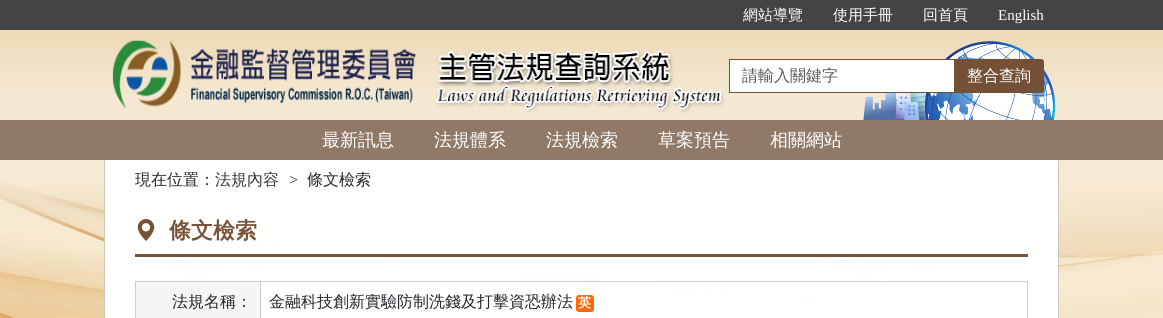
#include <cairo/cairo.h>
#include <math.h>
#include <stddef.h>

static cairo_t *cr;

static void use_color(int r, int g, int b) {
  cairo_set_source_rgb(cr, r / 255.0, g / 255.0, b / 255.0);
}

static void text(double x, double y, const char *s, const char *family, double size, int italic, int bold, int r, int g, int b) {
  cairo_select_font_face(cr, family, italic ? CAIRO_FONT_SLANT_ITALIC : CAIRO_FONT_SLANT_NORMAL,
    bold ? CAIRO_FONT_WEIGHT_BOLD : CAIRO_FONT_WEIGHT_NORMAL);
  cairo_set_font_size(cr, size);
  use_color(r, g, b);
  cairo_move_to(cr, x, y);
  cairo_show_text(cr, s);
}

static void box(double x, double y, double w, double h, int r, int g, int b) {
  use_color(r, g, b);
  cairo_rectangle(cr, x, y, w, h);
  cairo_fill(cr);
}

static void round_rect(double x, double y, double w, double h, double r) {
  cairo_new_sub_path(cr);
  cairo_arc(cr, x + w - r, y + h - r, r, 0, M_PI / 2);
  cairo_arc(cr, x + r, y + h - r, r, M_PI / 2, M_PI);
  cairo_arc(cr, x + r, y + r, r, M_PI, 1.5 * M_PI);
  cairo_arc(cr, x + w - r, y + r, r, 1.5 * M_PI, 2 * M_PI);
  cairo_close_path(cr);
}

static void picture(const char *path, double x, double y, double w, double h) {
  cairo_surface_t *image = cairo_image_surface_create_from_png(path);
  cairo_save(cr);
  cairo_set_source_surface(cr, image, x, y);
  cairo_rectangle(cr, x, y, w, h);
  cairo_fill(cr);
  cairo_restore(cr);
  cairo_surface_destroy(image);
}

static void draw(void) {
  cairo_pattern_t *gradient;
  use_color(68, 68, 68);
  cairo_paint(cr);
  gradient = cairo_pattern_create_linear(582, 30, 582, 160);
  cairo_pattern_add_color_stop_rgba(gradient, 0, 0.933, 0.851, 0.718, 1);
  cairo_pattern_add_color_stop_rgba(gradient, 0.5, 0.957, 0.91, 0.824, 1);
  cairo_set_source(cr, gradient);
  cairo_pattern_destroy(gradient);
  cairo_rectangle(cr, 0, 30, 1163, 90);
  cairo_fill(cr);
  picture("img_01.png", 863, 41, 193, 79);
  picture("img_02.png", 112, 40, 304, 69);
  picture("img_03.png", 436, 50, 288, 63);
  use_color(255, 255, 255);
  cairo_rectangle(cr, 729.5, 59.5, 225, 33);
  cairo_fill_preserve(cr);
  use_color(116, 80, 54);
  cairo_set_line_width(cr, 1);
  cairo_stroke(cr);
  cairo_new_path(cr);
  cairo_move_to(cr, 954.5, 59.5);
  cairo_line_to(cr, 1041, 59.5);
  cairo_curve_to(cr, 1042.5, 59.5, 1043.5, 60.5, 1043.5, 62);
  cairo_line_to(cr, 1043.5, 90);
  cairo_curve_to(cr, 1043.5, 91.5, 1042.5, 92.5, 1041, 92.5);
  cairo_line_to(cr, 954.5, 92.5);
  cairo_close_path(cr);
  cairo_fill_preserve(cr);
  cairo_stroke(cr);
  box(0, 120, 1163, 40, 145, 121, 104);
  picture("img_04.png", 0, 160, 1163, 158);
  cairo_set_source_rgba(cr, 1, 1, 1, 0.99);
  cairo_rectangle(cr, 105, 160, 953, 158);
  cairo_fill(cr);
  box(1058, 160, 1, 158, 206, 197, 189);
  box(104, 160, 1, 158, 206, 197, 189);
  box(135, 254, 893, 3, 117, 82, 56);
  picture("img_05.png", 137, 219, 18, 22);
  box(135, 281, 125, 1, 222, 226, 230);
  box(136, 282, 124, 36, 245, 245, 245);
  box(260, 281, 768, 1, 204, 204, 204);
  cairo_set_source_rgba(cr, 0.8, 0.8, 0.8, 0.99);
  cairo_rectangle(cr, 260, 281, 1, 37);
  cairo_fill(cr);
  cairo_rectangle(cr, 135, 281, 126, 1);
  cairo_fill(cr);
  cairo_rectangle(cr, 135, 281, 1, 37);
  cairo_fill(cr);
  cairo_rectangle(cr, 1027, 281, 1, 37);
  cairo_fill(cr);
  use_color(255, 104, 3);
  round_rect(576, 295, 18, 17, 3);
  cairo_fill(cr);
  text(743, 20, "網站導覽", "WenQuanYi Zen Hei Medium", 15, 0, 0, 255, 255, 255);
  text(833, 20, "使用手冊", "WenQuanYi Zen Hei Medium", 15, 0, 0, 255, 255, 255);
  text(923, 20, "回首頁", "WenQuanYi Zen Hei Medium", 15, 0, 0, 255, 255, 255);
  text(998, 20, "English", "Liberation Serif", 15, 0, 0, 255, 255, 255);
  text(742, 81, "請輸入關鍵字", "WenQuanYi Zen Hei Medium", 16, 0, 0, 89, 92, 95);
  text(967, 81, "整合查詢", "WenQuanYi Zen Hei Medium", 16, 0, 0, 255, 255, 255);
  text(322, 146, "最新訊息", "WenQuanYi Zen Hei Medium", 18, 0, 0, 255, 255, 255);
  text(434, 146, "法規體系", "WenQuanYi Zen Hei Medium", 18, 0, 0, 255, 255, 255);
  text(546, 146, "法規檢索", "WenQuanYi Zen Hei Medium", 18, 0, 0, 255, 255, 255);
  text(658, 146, "草案預告", "WenQuanYi Zen Hei Medium", 18, 0, 0, 255, 255, 255);
  text(770, 146, "相關網站", "WenQuanYi Zen Hei Medium", 18, 0, 0, 255, 255, 255);
  text(135, 185, "現在位置：", "WenQuanYi Zen Hei Medium", 16, 0, 0, 35, 39, 43);
  text(215, 185, "法規內容", "WenQuanYi Zen Hei Medium", 16, 0, 0, 53, 53, 53);
  text(289, 185, ">", "Liberation Serif", 16, 0, 0, 53, 53, 53);
  text(307, 185, "條文檢索", "WenQuanYi Zen Hei Medium", 16, 0, 0, 35, 39, 43);
  text(169, 238, "條文檢索", "WenQuanYi Zen Hei", 22, 0, 1, 117, 82, 56);
  text(172, 307, "法規名稱：", "WenQuanYi Zen Hei Medium", 16, 0, 0, 35, 39, 43);
  text(269, 307, "金融科技創新實驗防制洗錢及打擊資恐辦法", "WenQuanYi Zen Hei Medium", 16, 0, 0, 35, 39, 43);
  text(578, 307, "英", "WenQuanYi Zen Hei", 13, 0, 1, 255, 255, 255);
}

int main(void) {
  cairo_surface_t *surface = cairo_image_surface_create(CAIRO_FORMAT_RGB24, 1163, 318);
  cr = cairo_create(surface);
  cairo_font_options_t *options = cairo_font_options_create();
  cairo_font_options_set_hint_metrics(options, CAIRO_HINT_METRICS_OFF);
  cairo_font_options_set_hint_style(options, CAIRO_HINT_STYLE_NONE);
  cairo_set_font_options(cr, options);
  cairo_set_miter_limit(cr, 4);
  draw();
  cairo_surface_write_to_png(surface, "out.png");
  cairo_font_options_destroy(options);
  cairo_destroy(cr);
  cairo_surface_destroy(surface);
  return 0;
}
